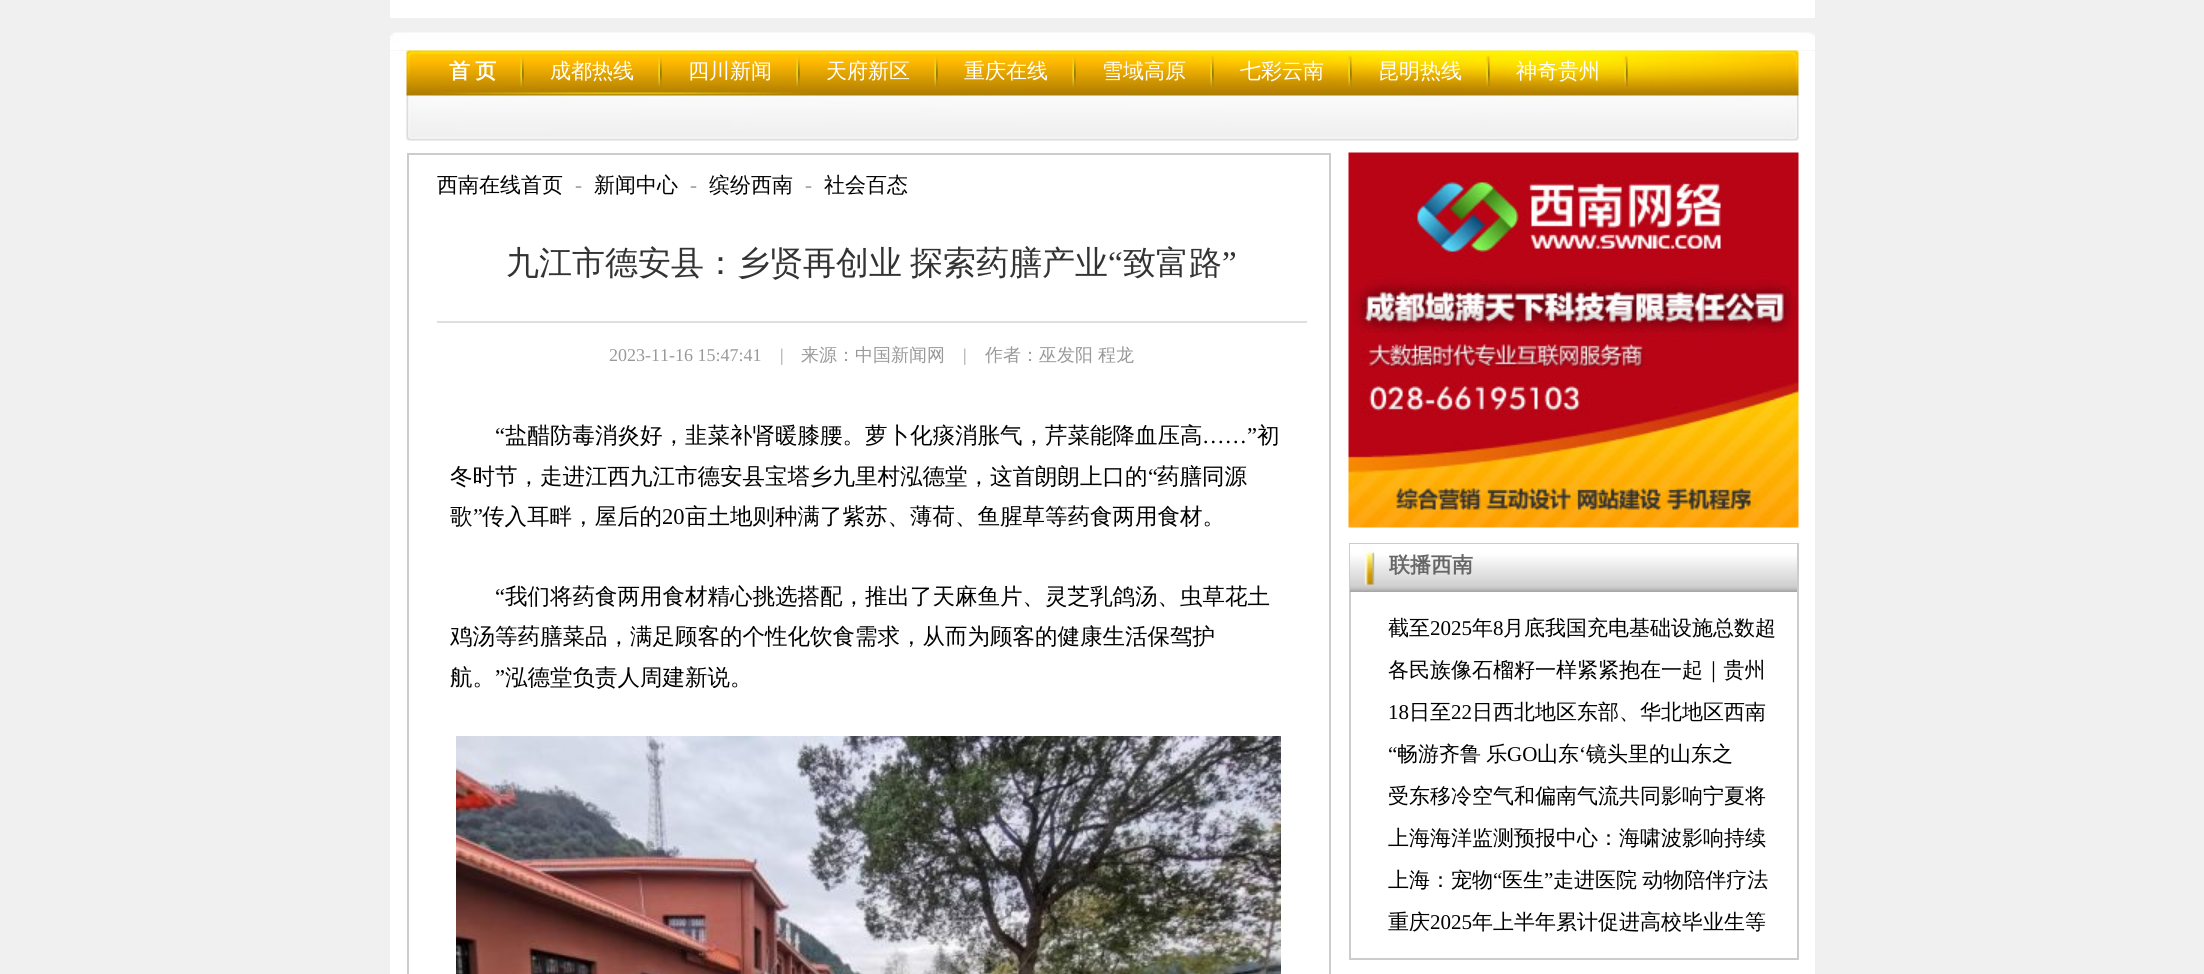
#include <cairo/cairo.h>
#include <math.h>
#include <stddef.h>

static cairo_t *cr;

static void use_color(int r, int g, int b) {
  cairo_set_source_rgb(cr, r / 255.0, g / 255.0, b / 255.0);
}

static void text(double x, double y, const char *s, const char *family, double size, int italic, int bold, int r, int g, int b) {
  cairo_select_font_face(cr, family, italic ? CAIRO_FONT_SLANT_ITALIC : CAIRO_FONT_SLANT_NORMAL,
    bold ? CAIRO_FONT_WEIGHT_BOLD : CAIRO_FONT_WEIGHT_NORMAL);
  cairo_set_font_size(cr, size);
  use_color(r, g, b);
  cairo_move_to(cr, x, y);
  cairo_show_text(cr, s);
}

static void spaced_text(double x, double y, const char *s, double letter, double word) {
  cairo_move_to(cr, x, y);
  while (*s) {
    char ch[5] = {0};
    int n = 0;
    do ch[n++] = *s++; while ((*s & 0xC0) == 0x80);
    cairo_show_text(cr, ch);
    cairo_rel_move_to(cr, letter + word * (*ch == ' '), 0);
  }
}

static void box(double x, double y, double w, double h, int r, int g, int b) {
  use_color(r, g, b);
  cairo_rectangle(cr, x, y, w, h);
  cairo_fill(cr);
}

static void picture(const char *path, double x, double y, double w, double h) {
  cairo_surface_t *image = cairo_image_surface_create_from_png(path);
  cairo_save(cr);
  cairo_set_source_surface(cr, image, x, y);
  cairo_rectangle(cr, x, y, w, h);
  cairo_fill(cr);
  cairo_restore(cr);
  cairo_surface_destroy(image);
}

static void draw(void) {
  use_color(240, 240, 240);
  cairo_paint(cr);
  box(390, 0, 1425, 18, 255, 255, 255);
  picture("img_01.png", 390, 32, 1425, 19);
  box(390, 51, 1425, 923, 255, 255, 255);
  picture("img_02.png", 406, 50, 1393, 91);
  picture("img_03.png", 520, 56, 4, 31);
  picture("img_04.png", 658, 56, 4, 31);
  picture("img_05.png", 796, 56, 4, 31);
  picture("img_05.png", 934, 56, 4, 31);
  picture("img_06.png", 1072, 56, 4, 31);
  picture("img_07.png", 1210, 56, 4, 31);
  picture("img_08.png", 1348, 56, 4, 31);
  picture("img_09.png", 1486, 56, 4, 31);
  picture("img_10.png", 1624, 56, 4, 31);
  cairo_rectangle(cr, 408, 154, 922, 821);
  use_color(204, 204, 204);
  cairo_stroke(cr);
  box(437, 321, 870, 2, 223, 223, 223);
  picture("img_11.png", 456, 736, 825, 238);
  picture("img_12.png", 1348, 152, 451, 376);
  cairo_rectangle(cr, 1350, 544, 448, 415);
  use_color(204, 204, 204);
  cairo_stroke(cr);
  picture("img_13.png", 1350, 544, 447, 48);
  cairo_select_font_face(cr, "WenQuanYi Zen Hei", CAIRO_FONT_SLANT_NORMAL, CAIRO_FONT_WEIGHT_BOLD);
  cairo_set_font_size(cr, 21);
  use_color(255, 255, 255);
  spaced_text(449, 78, "首 页", 0, -1);
  text(550, 78, "成都热线", "WenQuanYi Zen Hei Medium", 21, 0, 0, 255, 255, 255);
  text(688, 78, "四川新闻", "WenQuanYi Zen Hei Medium", 21, 0, 0, 255, 255, 255);
  text(826, 78, "天府新区", "WenQuanYi Zen Hei Medium", 21, 0, 0, 255, 255, 255);
  text(964, 78, "重庆在线", "WenQuanYi Zen Hei Medium", 21, 0, 0, 255, 255, 255);
  text(1102, 78, "雪域高原", "WenQuanYi Zen Hei Medium", 21, 0, 0, 255, 255, 255);
  text(1240, 78, "七彩云南", "WenQuanYi Zen Hei Medium", 21, 0, 0, 255, 255, 255);
  text(1378, 78, "昆明热线", "WenQuanYi Zen Hei Medium", 21, 0, 0, 255, 255, 255);
  text(1516, 78, "神奇贵州", "WenQuanYi Zen Hei Medium", 21, 0, 0, 255, 255, 255);
  text(437, 192, "西南在线首页", "WenQuanYi Zen Hei Medium", 21, 0, 0, 0, 0, 0);
  text(575, 192, "-", "Liberation Serif", 21, 0, 0, 153, 153, 153);
  text(594, 192, "新闻中心", "WenQuanYi Zen Hei Medium", 21, 0, 0, 0, 0, 0);
  text(690, 192, "-", "Liberation Serif", 21, 0, 0, 153, 153, 153);
  text(709, 192, "缤纷西南", "WenQuanYi Zen Hei Medium", 21, 0, 0, 0, 0, 0);
  text(805, 192, "-", "Liberation Serif", 21, 0, 0, 153, 153, 153);
  text(824, 192, "社会百态", "WenQuanYi Zen Hei Medium", 21, 0, 0, 0, 0, 0);
  cairo_set_font_size(cr, 33);
  use_color(51, 51, 51);
  spaced_text(506, 274, "九江市德安县：乡贤再创业 探索药膳产业", 0, -2);
  text(1108, 274, "“", "Liberation Serif", 33, 0, 0, 51, 51, 51);
  text(1123, 274, "致富路", "WenQuanYi Zen Hei Medium", 33, 0, 0, 51, 51, 51);
  text(1222, 274, "”", "Liberation Serif", 33, 0, 0, 51, 51, 51);
  text(609, 361, "2023-11-16 15:47:41", "Liberation Serif", 18, 0, 0, 153, 153, 153);
  text(780, 361, "|", "Liberation Serif", 18, 0, 0, 153, 153, 153);
  text(801, 361, "来源：中国新闻网", "WenQuanYi Zen Hei Medium", 18, 0, 0, 153, 153, 153);
  text(963, 361, "|", "Liberation Serif", 18, 0, 0, 153, 153, 153);
  text(985, 361, "作者：巫发阳", "WenQuanYi Zen Hei Medium", 18, 0, 0, 153, 153, 153);
  text(1098, 361, "程龙", "WenQuanYi Zen Hei Medium", 18, 0, 0, 153, 153, 153);
  text(495, 443, "“", "Liberation Serif", 22.5, 0, 0, 0, 0, 0);
  text(505, 443, "盐醋防毒消炎好，韭菜补肾暖膝腰。萝卜化痰消胀气，芹菜能降血压高", "WenQuanYi Zen Hei Medium", 22.5, 0, 0, 0, 0, 0);
  text(1202, 443, "……”", "Liberation Serif", 22.5, 0, 0, 0, 0, 0);
  text(1257, 443, "初", "WenQuanYi Zen Hei Medium", 22.5, 0, 0, 0, 0, 0);
  text(450, 484, "冬时节，走进江西九江市德安县宝塔乡九里村泓德堂，这首朗朗上口的", "WenQuanYi Zen Hei Medium", 22.5, 0, 0, 0, 0, 0);
  text(1148, 484, "“", "Liberation Serif", 22.5, 0, 0, 0, 0, 0);
  text(1157, 484, "药膳同源", "WenQuanYi Zen Hei Medium", 22.5, 0, 0, 0, 0, 0);
  text(450, 524, "歌", "WenQuanYi Zen Hei Medium", 22.5, 0, 0, 0, 0, 0);
  text(473, 524, "”", "Liberation Serif", 22.5, 0, 0, 0, 0, 0);
  text(482, 524, "传入耳畔，屋后的", "WenQuanYi Zen Hei Medium", 22.5, 0, 0, 0, 0, 0);
  text(662, 524, "20", "Liberation Serif", 22.5, 0, 0, 0, 0, 0);
  text(685, 524, "亩土地则种满了紫苏、薄荷、鱼腥草等药食两用食材。", "WenQuanYi Zen Hei Medium", 22.5, 0, 0, 0, 0, 0);
  text(495, 604, "“", "Liberation Serif", 22.5, 0, 0, 0, 0, 0);
  text(505, 604, "我们将药食两用食材精心挑选搭配，推出了天麻鱼片、灵芝乳鸽汤、虫草花土", "WenQuanYi Zen Hei Medium", 22.5, 0, 0, 0, 0, 0);
  text(450, 644, "鸡汤等药膳菜品，满足顾客的个性化饮食需求，从而为顾客的健康生活保驾护", "WenQuanYi Zen Hei Medium", 22.5, 0, 0, 0, 0, 0);
  text(450, 685, "航。", "WenQuanYi Zen Hei Medium", 22.5, 0, 0, 0, 0, 0);
  text(495, 685, "”", "Liberation Serif", 22.5, 0, 0, 0, 0, 0);
  text(505, 685, "泓德堂负责人周建新说。", "WenQuanYi Zen Hei Medium", 22.5, 0, 0, 0, 0, 0);
  text(1389, 572, "联播西南", "WenQuanYi Zen Hei", 21, 0, 1, 102, 102, 102);
  text(1388, 635, "截至", "WenQuanYi Zen Hei Medium", 21, 0, 0, 0, 0, 0);
  text(1430, 635, "2025", "Liberation Serif", 21, 0, 0, 0, 0, 0);
  text(1472, 635, "年", "WenQuanYi Zen Hei Medium", 21, 0, 0, 0, 0, 0);
  text(1493, 635, "8", "Liberation Serif", 21, 0, 0, 0, 0, 0);
  text(1503, 635, "月底我国充电基础设施总数超", "WenQuanYi Zen Hei Medium", 21, 0, 0, 0, 0, 0);
  text(1388, 677, "各民族像石榴籽一样紧紧抱在一起｜贵州", "WenQuanYi Zen Hei Medium", 21, 0, 0, 0, 0, 0);
  text(1388, 719, "18", "Liberation Serif", 21, 0, 0, 0, 0, 0);
  text(1409, 719, "日至", "WenQuanYi Zen Hei Medium", 21, 0, 0, 0, 0, 0);
  text(1451, 719, "22", "Liberation Serif", 21, 0, 0, 0, 0, 0);
  text(1472, 719, "日西北地区东部、华北地区西南", "WenQuanYi Zen Hei Medium", 21, 0, 0, 0, 0, 0);
  text(1388, 761, "“", "Liberation Serif", 21, 0, 0, 0, 0, 0);
  cairo_select_font_face(cr, "WenQuanYi Zen Hei Medium", CAIRO_FONT_SLANT_NORMAL, CAIRO_FONT_WEIGHT_NORMAL);
  spaced_text(1397, 761, "畅游齐鲁 乐", 0, -1);
  text(1507, 761, "GO", "Liberation Serif", 21, 0, 0, 0, 0, 0);
  text(1537, 761, "山东", "WenQuanYi Zen Hei Medium", 21, 0, 0, 0, 0, 0);
  text(1579, 761, "‘", "Liberation Serif", 21, 0, 0, 0, 0, 0);
  text(1586, 761, "镜头里的山东之", "WenQuanYi Zen Hei Medium", 21, 0, 0, 0, 0, 0);
  text(1388, 803, "受东移冷空气和偏南气流共同影响宁夏将", "WenQuanYi Zen Hei Medium", 21, 0, 0, 0, 0, 0);
  text(1388, 845, "上海海洋监测预报中心：海啸波影响持续", "WenQuanYi Zen Hei Medium", 21, 0, 0, 0, 0, 0);
  text(1388, 887, "上海：宠物", "WenQuanYi Zen Hei Medium", 21, 0, 0, 0, 0, 0);
  text(1493, 887, "“", "Liberation Serif", 21, 0, 0, 0, 0, 0);
  text(1502, 887, "医生", "WenQuanYi Zen Hei Medium", 21, 0, 0, 0, 0, 0);
  text(1544, 887, "”", "Liberation Serif", 21, 0, 0, 0, 0, 0);
  cairo_select_font_face(cr, "WenQuanYi Zen Hei Medium", CAIRO_FONT_SLANT_NORMAL, CAIRO_FONT_WEIGHT_NORMAL);
  spaced_text(1553, 887, "走进医院 动物陪伴疗法", 0, -1);
  text(1388, 929, "重庆", "WenQuanYi Zen Hei Medium", 21, 0, 0, 0, 0, 0);
  text(1430, 929, "2025", "Liberation Serif", 21, 0, 0, 0, 0, 0);
  text(1472, 929, "年上半年累计促进高校毕业生等", "WenQuanYi Zen Hei Medium", 21, 0, 0, 0, 0, 0);
}

int main(void) {
  cairo_surface_t *surface = cairo_image_surface_create(CAIRO_FORMAT_RGB24, 2204, 974);
  cr = cairo_create(surface);
  cairo_font_options_t *options = cairo_font_options_create();
  cairo_font_options_set_hint_metrics(options, CAIRO_HINT_METRICS_OFF);
  cairo_font_options_set_hint_style(options, CAIRO_HINT_STYLE_NONE);
  cairo_set_font_options(cr, options);
  cairo_set_miter_limit(cr, 4);
  draw();
  cairo_surface_write_to_png(surface, "out.png");
  cairo_font_options_destroy(options);
  cairo_destroy(cr);
  cairo_surface_destroy(surface);
  return 0;
}
